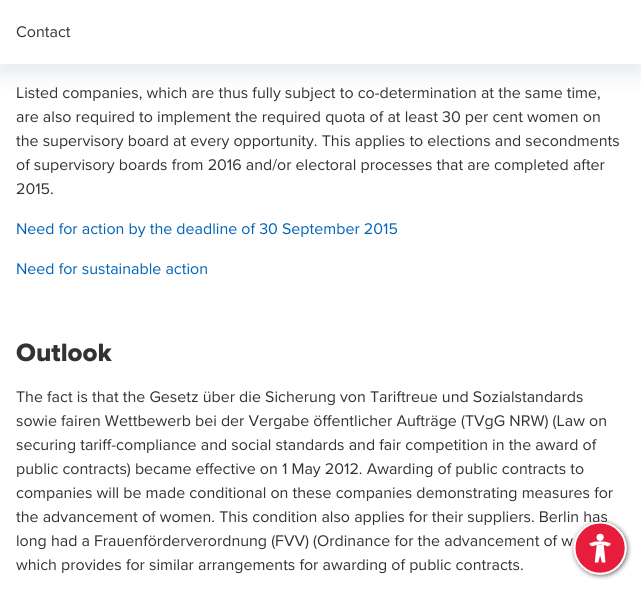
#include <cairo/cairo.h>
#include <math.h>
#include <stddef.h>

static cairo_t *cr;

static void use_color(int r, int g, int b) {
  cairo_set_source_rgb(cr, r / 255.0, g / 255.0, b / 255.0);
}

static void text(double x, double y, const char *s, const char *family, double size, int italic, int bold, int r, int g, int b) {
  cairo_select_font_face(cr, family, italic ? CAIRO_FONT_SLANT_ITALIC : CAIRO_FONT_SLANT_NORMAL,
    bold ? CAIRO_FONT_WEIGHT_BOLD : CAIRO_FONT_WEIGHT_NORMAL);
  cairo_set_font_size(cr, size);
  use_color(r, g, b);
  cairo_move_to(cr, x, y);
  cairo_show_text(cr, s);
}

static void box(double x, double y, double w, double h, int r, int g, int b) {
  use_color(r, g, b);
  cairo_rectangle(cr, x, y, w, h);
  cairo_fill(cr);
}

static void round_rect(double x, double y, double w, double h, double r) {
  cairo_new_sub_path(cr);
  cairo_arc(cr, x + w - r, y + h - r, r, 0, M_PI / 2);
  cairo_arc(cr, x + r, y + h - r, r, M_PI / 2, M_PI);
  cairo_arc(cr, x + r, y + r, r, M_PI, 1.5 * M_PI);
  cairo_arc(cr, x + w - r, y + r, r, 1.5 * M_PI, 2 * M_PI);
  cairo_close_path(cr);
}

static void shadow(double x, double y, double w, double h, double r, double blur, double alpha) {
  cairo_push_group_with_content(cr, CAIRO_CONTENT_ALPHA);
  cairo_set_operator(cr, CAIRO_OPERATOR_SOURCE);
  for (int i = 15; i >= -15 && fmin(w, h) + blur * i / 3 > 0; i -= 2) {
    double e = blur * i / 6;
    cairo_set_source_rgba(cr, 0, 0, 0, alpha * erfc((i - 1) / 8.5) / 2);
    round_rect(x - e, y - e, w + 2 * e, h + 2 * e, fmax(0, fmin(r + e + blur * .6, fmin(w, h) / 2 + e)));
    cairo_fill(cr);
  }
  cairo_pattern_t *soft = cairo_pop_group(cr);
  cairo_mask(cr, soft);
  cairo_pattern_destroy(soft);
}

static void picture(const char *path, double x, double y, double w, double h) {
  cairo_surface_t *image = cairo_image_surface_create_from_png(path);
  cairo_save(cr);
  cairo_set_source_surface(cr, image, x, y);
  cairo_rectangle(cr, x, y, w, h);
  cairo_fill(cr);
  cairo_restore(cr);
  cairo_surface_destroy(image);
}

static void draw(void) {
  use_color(255, 255, 255);
  cairo_paint(cr);
  use_color(91, 110, 127);
  shadow(0, 10, 641, 64, 0, 10, 0.15);
  box(0, 0, 641, 64, 255, 255, 255);
  text(16, 37, "Contact", "Proxima Nova", 16, 0, 0, 51, 51, 51);
  text(16, 98, "Listed companies, which are thus fully subject to co-determination at the same time,", "Proxima Nova", 16, 0, 0, 51, 51, 51);
  text(16, 122, "are also required to implement the required quota of at least 30 per cent women on", "Proxima Nova", 16, 0, 0, 51, 51, 51);
  text(16, 146, "the supervisory board at every opportunity. This applies to elections and secondments", "Proxima Nova", 16, 0, 0, 51, 51, 51);
  text(16, 170, "of supervisory boards from 2016 and/or electoral processes that are completed after", "Proxima Nova", 16, 0, 0, 51, 51, 51);
  text(16, 194, "2015.", "Proxima Nova", 16, 0, 0, 51, 51, 51);
  text(16, 234, "Need for action by the deadline of 30 September 2015", "Proxima Nova", 16, 0, 0, 0, 98, 184);
  text(16, 274, "Need for sustainable action", "Proxima Nova", 16, 0, 0, 0, 98, 184);
  text(16, 361, "Outlook", "Proxima Nova ExtraBold", 26, 0, 0, 51, 51, 51);
  text(16, 402, "The fact is that the Gesetz über die Sicherung von Tariftreue und Sozialstandards", "Proxima Nova", 16, 0, 0, 51, 51, 51);
  text(16, 426, "sowie fairen Wettbewerb bei der Vergabe öffentlicher Aufträge (TVgG NRW) (Law on", "Proxima Nova", 16, 0, 0, 51, 51, 51);
  text(16, 450, "securing tariff-compliance and social standards and fair competition in the award of", "Proxima Nova", 16, 0, 0, 51, 51, 51);
  text(16, 474, "public contracts) became effective on 1 May 2012. Awarding of public contracts to", "Proxima Nova", 16, 0, 0, 51, 51, 51);
  text(16, 498, "companies will be made conditional on these companies demonstrating measures for", "Proxima Nova", 16, 0, 0, 51, 51, 51);
  text(16, 522, "the advancement of women. This condition also applies for their suppliers. Berlin has", "Proxima Nova", 16, 0, 0, 51, 51, 51);
  text(16, 546, "long had a Frauenförderverordnung (FVV) (Ordinance for the advancement of w", "Proxima Nova", 16, 0, 0, 51, 51, 51);
  text(16, 570, "which provides for similar arrangements for awarding of public contracts.", "Proxima Nova", 16, 0, 0, 51, 51, 51);
  picture("img_01.png", 570, 518, 62, 62);
}

int main(void) {
  cairo_surface_t *surface = cairo_image_surface_create(CAIRO_FORMAT_RGB24, 641, 589);
  cr = cairo_create(surface);
  cairo_font_options_t *options = cairo_font_options_create();
  cairo_font_options_set_hint_metrics(options, CAIRO_HINT_METRICS_OFF);
  cairo_font_options_set_hint_style(options, CAIRO_HINT_STYLE_NONE);
  cairo_set_font_options(cr, options);
  cairo_set_miter_limit(cr, 4);
  draw();
  cairo_surface_write_to_png(surface, "out.png");
  cairo_font_options_destroy(options);
  cairo_destroy(cr);
  cairo_surface_destroy(surface);
  return 0;
}
